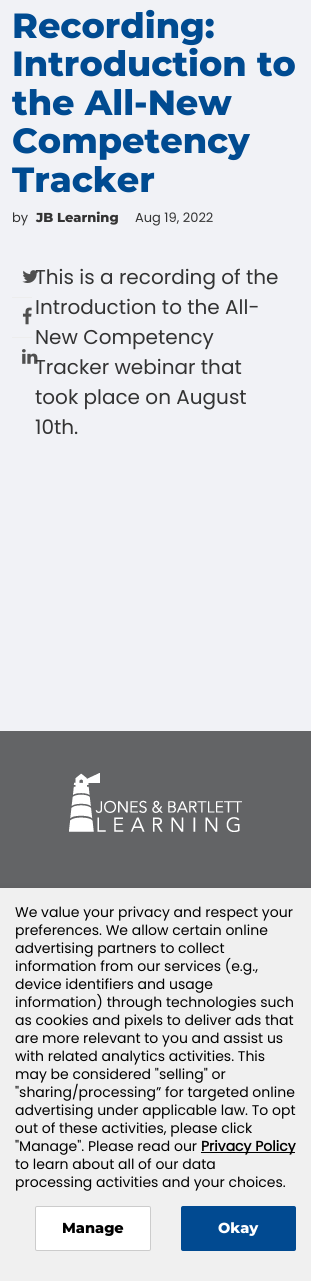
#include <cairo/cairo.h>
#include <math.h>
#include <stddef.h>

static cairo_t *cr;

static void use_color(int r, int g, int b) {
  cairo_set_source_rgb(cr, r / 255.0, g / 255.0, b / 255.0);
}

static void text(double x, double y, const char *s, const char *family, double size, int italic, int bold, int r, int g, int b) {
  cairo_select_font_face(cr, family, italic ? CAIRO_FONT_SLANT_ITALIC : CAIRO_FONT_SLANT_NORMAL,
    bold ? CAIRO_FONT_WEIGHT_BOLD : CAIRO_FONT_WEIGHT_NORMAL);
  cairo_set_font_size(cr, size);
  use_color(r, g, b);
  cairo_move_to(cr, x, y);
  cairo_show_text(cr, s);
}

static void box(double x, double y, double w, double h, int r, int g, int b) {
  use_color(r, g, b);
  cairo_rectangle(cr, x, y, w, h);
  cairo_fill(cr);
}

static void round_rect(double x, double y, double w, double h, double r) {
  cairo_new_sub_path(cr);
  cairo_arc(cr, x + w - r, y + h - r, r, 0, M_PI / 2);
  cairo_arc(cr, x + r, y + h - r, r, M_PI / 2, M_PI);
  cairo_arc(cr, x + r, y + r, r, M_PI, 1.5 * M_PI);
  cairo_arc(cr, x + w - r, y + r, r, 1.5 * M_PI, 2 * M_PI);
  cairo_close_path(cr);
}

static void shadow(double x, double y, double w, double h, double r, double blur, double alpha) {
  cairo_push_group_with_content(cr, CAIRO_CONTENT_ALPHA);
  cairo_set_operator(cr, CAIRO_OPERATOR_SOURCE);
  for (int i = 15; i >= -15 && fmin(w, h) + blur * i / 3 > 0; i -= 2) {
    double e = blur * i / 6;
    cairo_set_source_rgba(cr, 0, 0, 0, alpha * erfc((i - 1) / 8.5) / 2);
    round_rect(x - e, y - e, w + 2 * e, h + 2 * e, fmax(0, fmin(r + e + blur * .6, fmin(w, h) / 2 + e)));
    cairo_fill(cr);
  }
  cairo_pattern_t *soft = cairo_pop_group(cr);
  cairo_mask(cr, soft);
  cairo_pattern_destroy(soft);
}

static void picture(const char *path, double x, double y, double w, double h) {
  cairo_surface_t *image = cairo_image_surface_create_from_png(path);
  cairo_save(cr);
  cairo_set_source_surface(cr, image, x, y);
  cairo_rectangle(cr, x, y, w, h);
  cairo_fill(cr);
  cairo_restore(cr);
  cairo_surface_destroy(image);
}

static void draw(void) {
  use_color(241, 242, 246);
  cairo_paint(cr);
  box(12, 297, 20, 1, 237, 237, 237);
  picture("img_01.png", 22, 270, 17, 13);
  box(12, 337, 20, 1, 237, 237, 237);
  picture("img_02.png", 22, 307, 10, 18);
  picture("img_03.png", 22, 349, 16, 15);
  box(0, 731, 311, 157, 99, 100, 102);
  picture("img_04.png", 69, 773, 173, 59);
  use_color(0, 0, 0);
  shadow(0, 892, 311, 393, 0, 6, 0.15);
  box(0, 888, 311, 393, 240, 240, 240);
  box(201, 1152, 94, 1, 0, 0, 0);
  use_color(255, 255, 255);
  round_rect(35.5, 1206.5, 115, 44, 1.5);
  cairo_fill_preserve(cr);
  use_color(204, 204, 204);
  cairo_set_line_width(cr, 1);
  cairo_stroke(cr);
  use_color(1, 74, 145);
  round_rect(181, 1206, 115, 45, 2);
  cairo_fill(cr);
  text(12, 38, "Recording:", "Montserrat Thin", 35, 0, 0, 0, 75, 145);
  text(12, 76, "Introduction to", "Montserrat Thin", 35, 0, 0, 0, 75, 145);
  text(12, 115, "the All-New", "Montserrat Thin", 35, 0, 0, 0, 75, 145);
  text(12, 153, "Competency", "Montserrat Thin", 35, 0, 0, 0, 75, 145);
  text(12, 192, "Tracker", "Montserrat Thin", 35, 0, 0, 0, 75, 145);
  text(12, 222, "by", "Poppins", 13, 0, 0, 51, 51, 51);
  text(36, 222, "JB Learning", "Montserrat Thin", 13, 0, 0, 51, 51, 51);
  text(135, 222, "Aug 19, 2022", "Poppins", 13, 0, 0, 51, 51, 51);
  text(35, 284, "This is a recording of the", "Poppins", 20, 0, 0, 51, 51, 51);
  text(35, 314, "Introduction to the All-", "Poppins", 20, 0, 0, 51, 51, 51);
  text(35, 344, "New Competency", "Poppins", 20, 0, 0, 51, 51, 51);
  text(35, 374, "Tracker webinar that", "Poppins", 20, 0, 0, 51, 51, 51);
  text(35, 404, "took place on August", "Poppins", 20, 0, 0, 51, 51, 51);
  text(35, 434, "10th.", "Poppins", 20, 0, 0, 51, 51, 51);
  text(15, 917, "We value your privacy and respect your", "Poppins", 14, 0, 0, 0, 0, 0);
  text(15, 935, "preferences. We allow certain online", "Poppins", 14, 0, 0, 0, 0, 0);
  text(15, 953, "advertising partners to collect", "Poppins", 14, 0, 0, 0, 0, 0);
  text(15, 971, "information from our services (e.g.,", "Poppins", 14, 0, 0, 0, 0, 0);
  text(15, 989, "device identifiers and usage", "Poppins", 14, 0, 0, 0, 0, 0);
  text(15, 1007, "information) through technologies such", "Poppins", 14, 0, 0, 0, 0, 0);
  text(15, 1025, "as cookies and pixels to deliver ads that", "Poppins", 14, 0, 0, 0, 0, 0);
  text(15, 1043, "are more relevant to you and assist us", "Poppins", 14, 0, 0, 0, 0, 0);
  text(15, 1061, "with related analytics activities. This", "Poppins", 14, 0, 0, 0, 0, 0);
  text(15, 1079, "may be considered \"selling\" or", "Poppins", 14, 0, 0, 0, 0, 0);
  text(15, 1097, "\"sharing/processing” for targeted online", "Poppins", 14, 0, 0, 0, 0, 0);
  text(15, 1115, "advertising under applicable law. To opt", "Poppins", 14, 0, 0, 0, 0, 0);
  text(15, 1133, "out of these activities, please click", "Poppins", 14, 0, 0, 0, 0, 0);
  text(15, 1151, "\"Manage\". Please read our", "Poppins", 14, 0, 0, 0, 0, 0);
  text(201, 1151, "Privacy Policy", "Poppins", 14, 0, 1, 0, 0, 0);
  text(15, 1169, "to learn about all of our data", "Poppins", 14, 0, 0, 0, 0, 0);
  text(15, 1187, "processing activities and your choices.", "Poppins", 14, 0, 0, 0, 0, 0);
  text(62, 1233, "Manage", "Montserrat Thin", 14.5, 0, 0, 0, 0, 0);
  text(218, 1233, "Okay", "Montserrat Thin", 14.5, 0, 0, 255, 255, 255);
}

int main(void) {
  cairo_surface_t *surface = cairo_image_surface_create(CAIRO_FORMAT_RGB24, 311, 1281);
  cr = cairo_create(surface);
  cairo_font_options_t *options = cairo_font_options_create();
  cairo_font_options_set_hint_metrics(options, CAIRO_HINT_METRICS_OFF);
  cairo_font_options_set_hint_style(options, CAIRO_HINT_STYLE_NONE);
  cairo_set_font_options(cr, options);
  cairo_set_miter_limit(cr, 4);
  draw();
  cairo_surface_write_to_png(surface, "out.png");
  cairo_font_options_destroy(options);
  cairo_destroy(cr);
  cairo_surface_destroy(surface);
  return 0;
}
